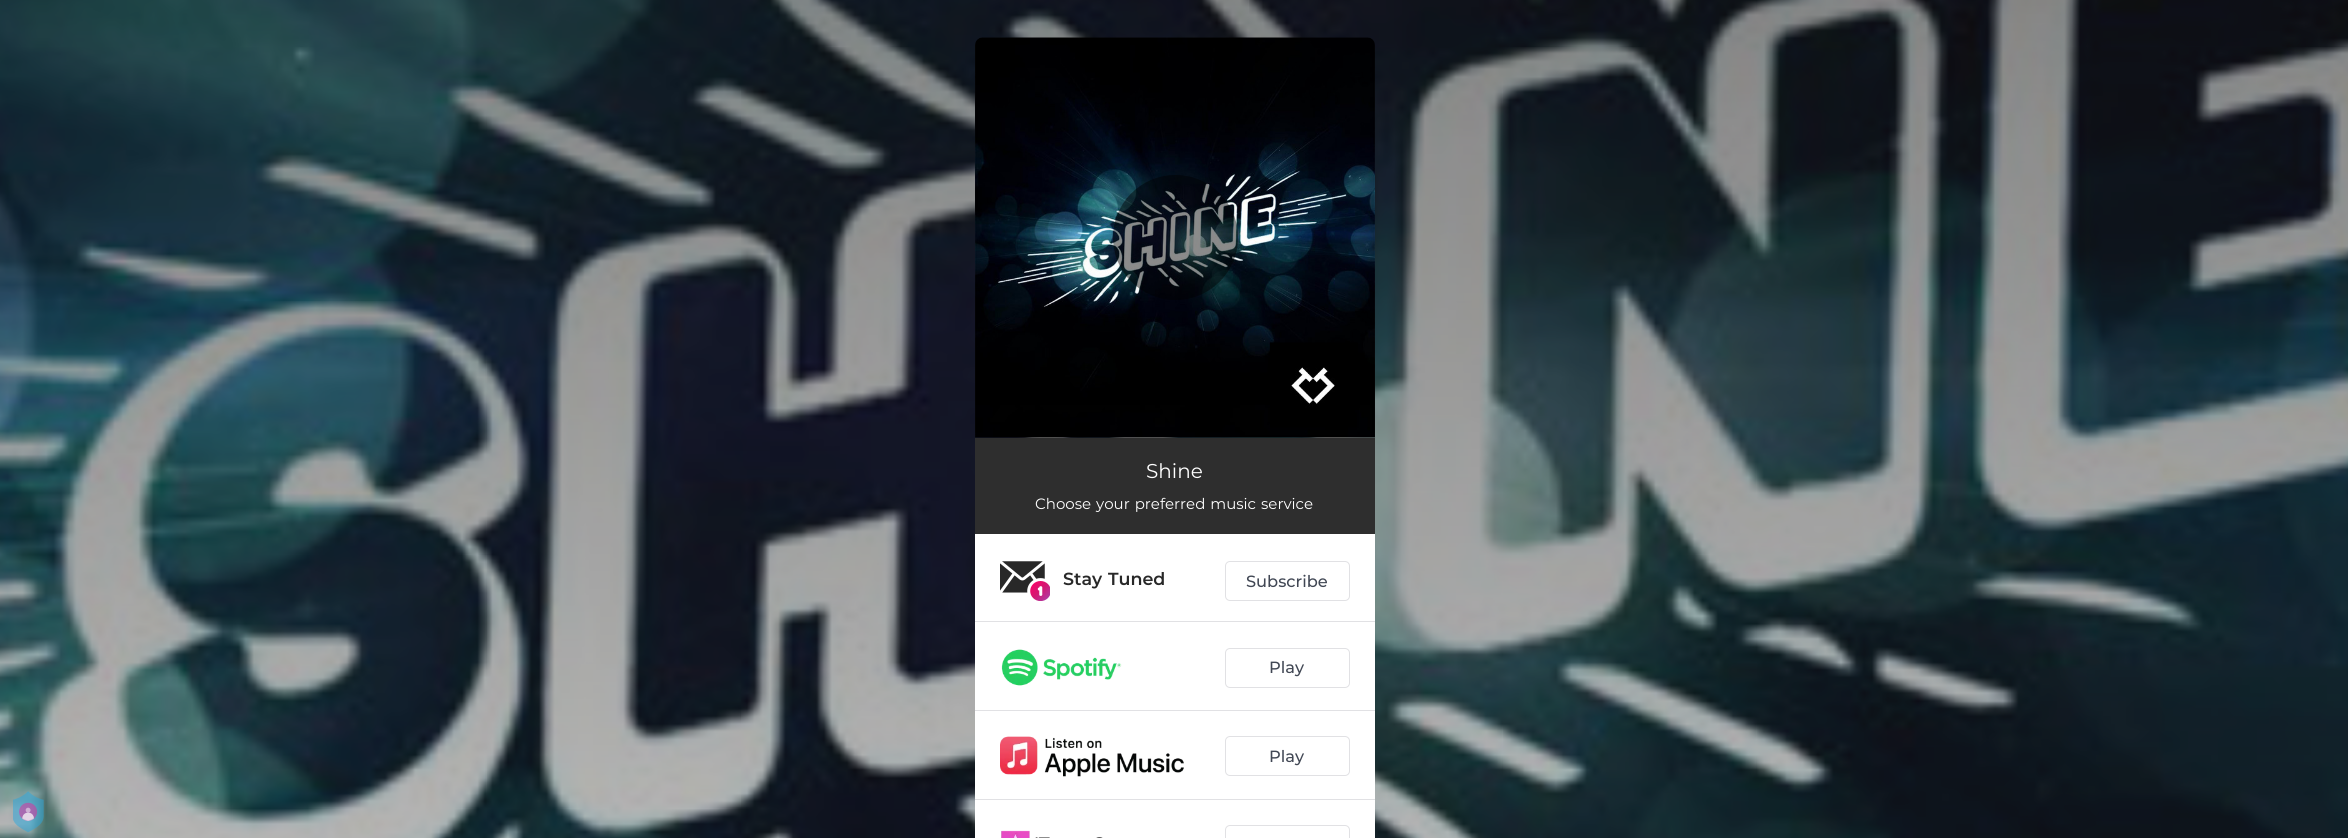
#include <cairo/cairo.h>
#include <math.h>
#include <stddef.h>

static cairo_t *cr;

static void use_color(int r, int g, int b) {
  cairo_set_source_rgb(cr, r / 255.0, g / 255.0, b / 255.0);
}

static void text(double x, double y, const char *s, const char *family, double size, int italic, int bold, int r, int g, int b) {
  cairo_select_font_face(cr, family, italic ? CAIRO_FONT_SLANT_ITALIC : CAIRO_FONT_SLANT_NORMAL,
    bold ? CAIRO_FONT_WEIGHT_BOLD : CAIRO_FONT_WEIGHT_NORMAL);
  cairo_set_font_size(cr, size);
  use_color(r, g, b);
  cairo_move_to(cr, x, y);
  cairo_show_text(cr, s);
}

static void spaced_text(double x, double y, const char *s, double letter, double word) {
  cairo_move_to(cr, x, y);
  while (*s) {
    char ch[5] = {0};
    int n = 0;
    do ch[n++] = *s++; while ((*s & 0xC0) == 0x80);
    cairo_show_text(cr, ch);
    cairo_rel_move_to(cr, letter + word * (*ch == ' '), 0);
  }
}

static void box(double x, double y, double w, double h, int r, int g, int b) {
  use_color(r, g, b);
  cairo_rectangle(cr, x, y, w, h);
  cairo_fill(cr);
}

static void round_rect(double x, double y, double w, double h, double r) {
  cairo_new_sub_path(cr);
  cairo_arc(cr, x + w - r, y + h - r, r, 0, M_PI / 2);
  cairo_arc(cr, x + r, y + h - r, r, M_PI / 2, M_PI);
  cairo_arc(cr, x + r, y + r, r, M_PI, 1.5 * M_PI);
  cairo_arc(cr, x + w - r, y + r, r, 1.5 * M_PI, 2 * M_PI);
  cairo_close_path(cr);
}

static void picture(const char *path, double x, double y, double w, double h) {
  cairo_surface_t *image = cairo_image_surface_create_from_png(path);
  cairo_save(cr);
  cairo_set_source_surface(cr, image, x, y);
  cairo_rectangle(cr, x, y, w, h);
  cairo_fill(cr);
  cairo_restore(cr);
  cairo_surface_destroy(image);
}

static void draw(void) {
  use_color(255, 255, 255);
  cairo_paint(cr);
  picture("img_01.png", 0, 0, 2348, 838);
  picture("img_02.png", 975, 37, 400, 401);
  cairo_set_source_rgba(cr, 0, 0, 0, 0.45);
  cairo_arc(cr, 1175.5, 237.5, 62.5, 0, 2 * M_PI);
  cairo_fill(cr);
  box(975, 438, 400, 96, 46, 46, 46);
  box(975, 534, 400, 304, 255, 255, 255);
  box(975, 621, 400, 1, 225, 225, 228);
  picture("img_03.png", 1000, 561, 50, 40);
  round_rect(1225.5, 561.5, 124, 39, 4.5);
  cairo_set_line_width(cr, 1);
  cairo_stroke(cr);
  box(975, 710, 400, 1, 225, 225, 228);
  picture("img_04.png", 1001, 649, 121, 37);
  round_rect(1225.5, 648.5, 124, 39, 4.5);
  cairo_stroke(cr);
  box(975, 799, 400, 1, 225, 225, 228);
  picture("img_05.png", 1000, 736, 184, 41);
  round_rect(1225.5, 736.5, 124, 39, 4.5);
  cairo_stroke(cr);
  picture("img_06.png", 1001, 830, 102, 8);
  round_rect(1225.5, 825.5, 124, 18, 4.5);
  cairo_stroke(cr);
  picture("img_07.png", 13, 791, 31, 42);
  text(1146, 478, "Shine", "Montserrat", 20, 0, 0, 255, 255, 255);
  cairo_set_font_size(cr, 15);
  spaced_text(1035, 509, "Choose your preferred music service", 0, 1);
  cairo_select_font_face(cr, "Montserrat SemiBold", CAIRO_FONT_SLANT_NORMAL, CAIRO_FONT_WEIGHT_NORMAL);
  cairo_set_font_size(cr, 17.5);
  use_color(40, 40, 40);
  spaced_text(1063, 585, "Stay Tuned", 0, 1);
  text(1246, 587, "Subscribe", "Montserrat Medium", 16.25, 0, 0, 65, 71, 84);
  text(1269, 673, "Play", "Montserrat Medium", 16.25, 0, 0, 65, 71, 84);
  text(1269, 762, "Play", "Montserrat Medium", 16.25, 0, 0, 65, 71, 84);
}

int main(void) {
  cairo_surface_t *surface = cairo_image_surface_create(CAIRO_FORMAT_RGB24, 2348, 838);
  cr = cairo_create(surface);
  cairo_font_options_t *options = cairo_font_options_create();
  cairo_font_options_set_hint_metrics(options, CAIRO_HINT_METRICS_OFF);
  cairo_font_options_set_hint_style(options, CAIRO_HINT_STYLE_NONE);
  cairo_set_font_options(cr, options);
  cairo_set_miter_limit(cr, 4);
  draw();
  cairo_surface_write_to_png(surface, "out.png");
  cairo_font_options_destroy(options);
  cairo_destroy(cr);
  cairo_surface_destroy(surface);
  return 0;
}
